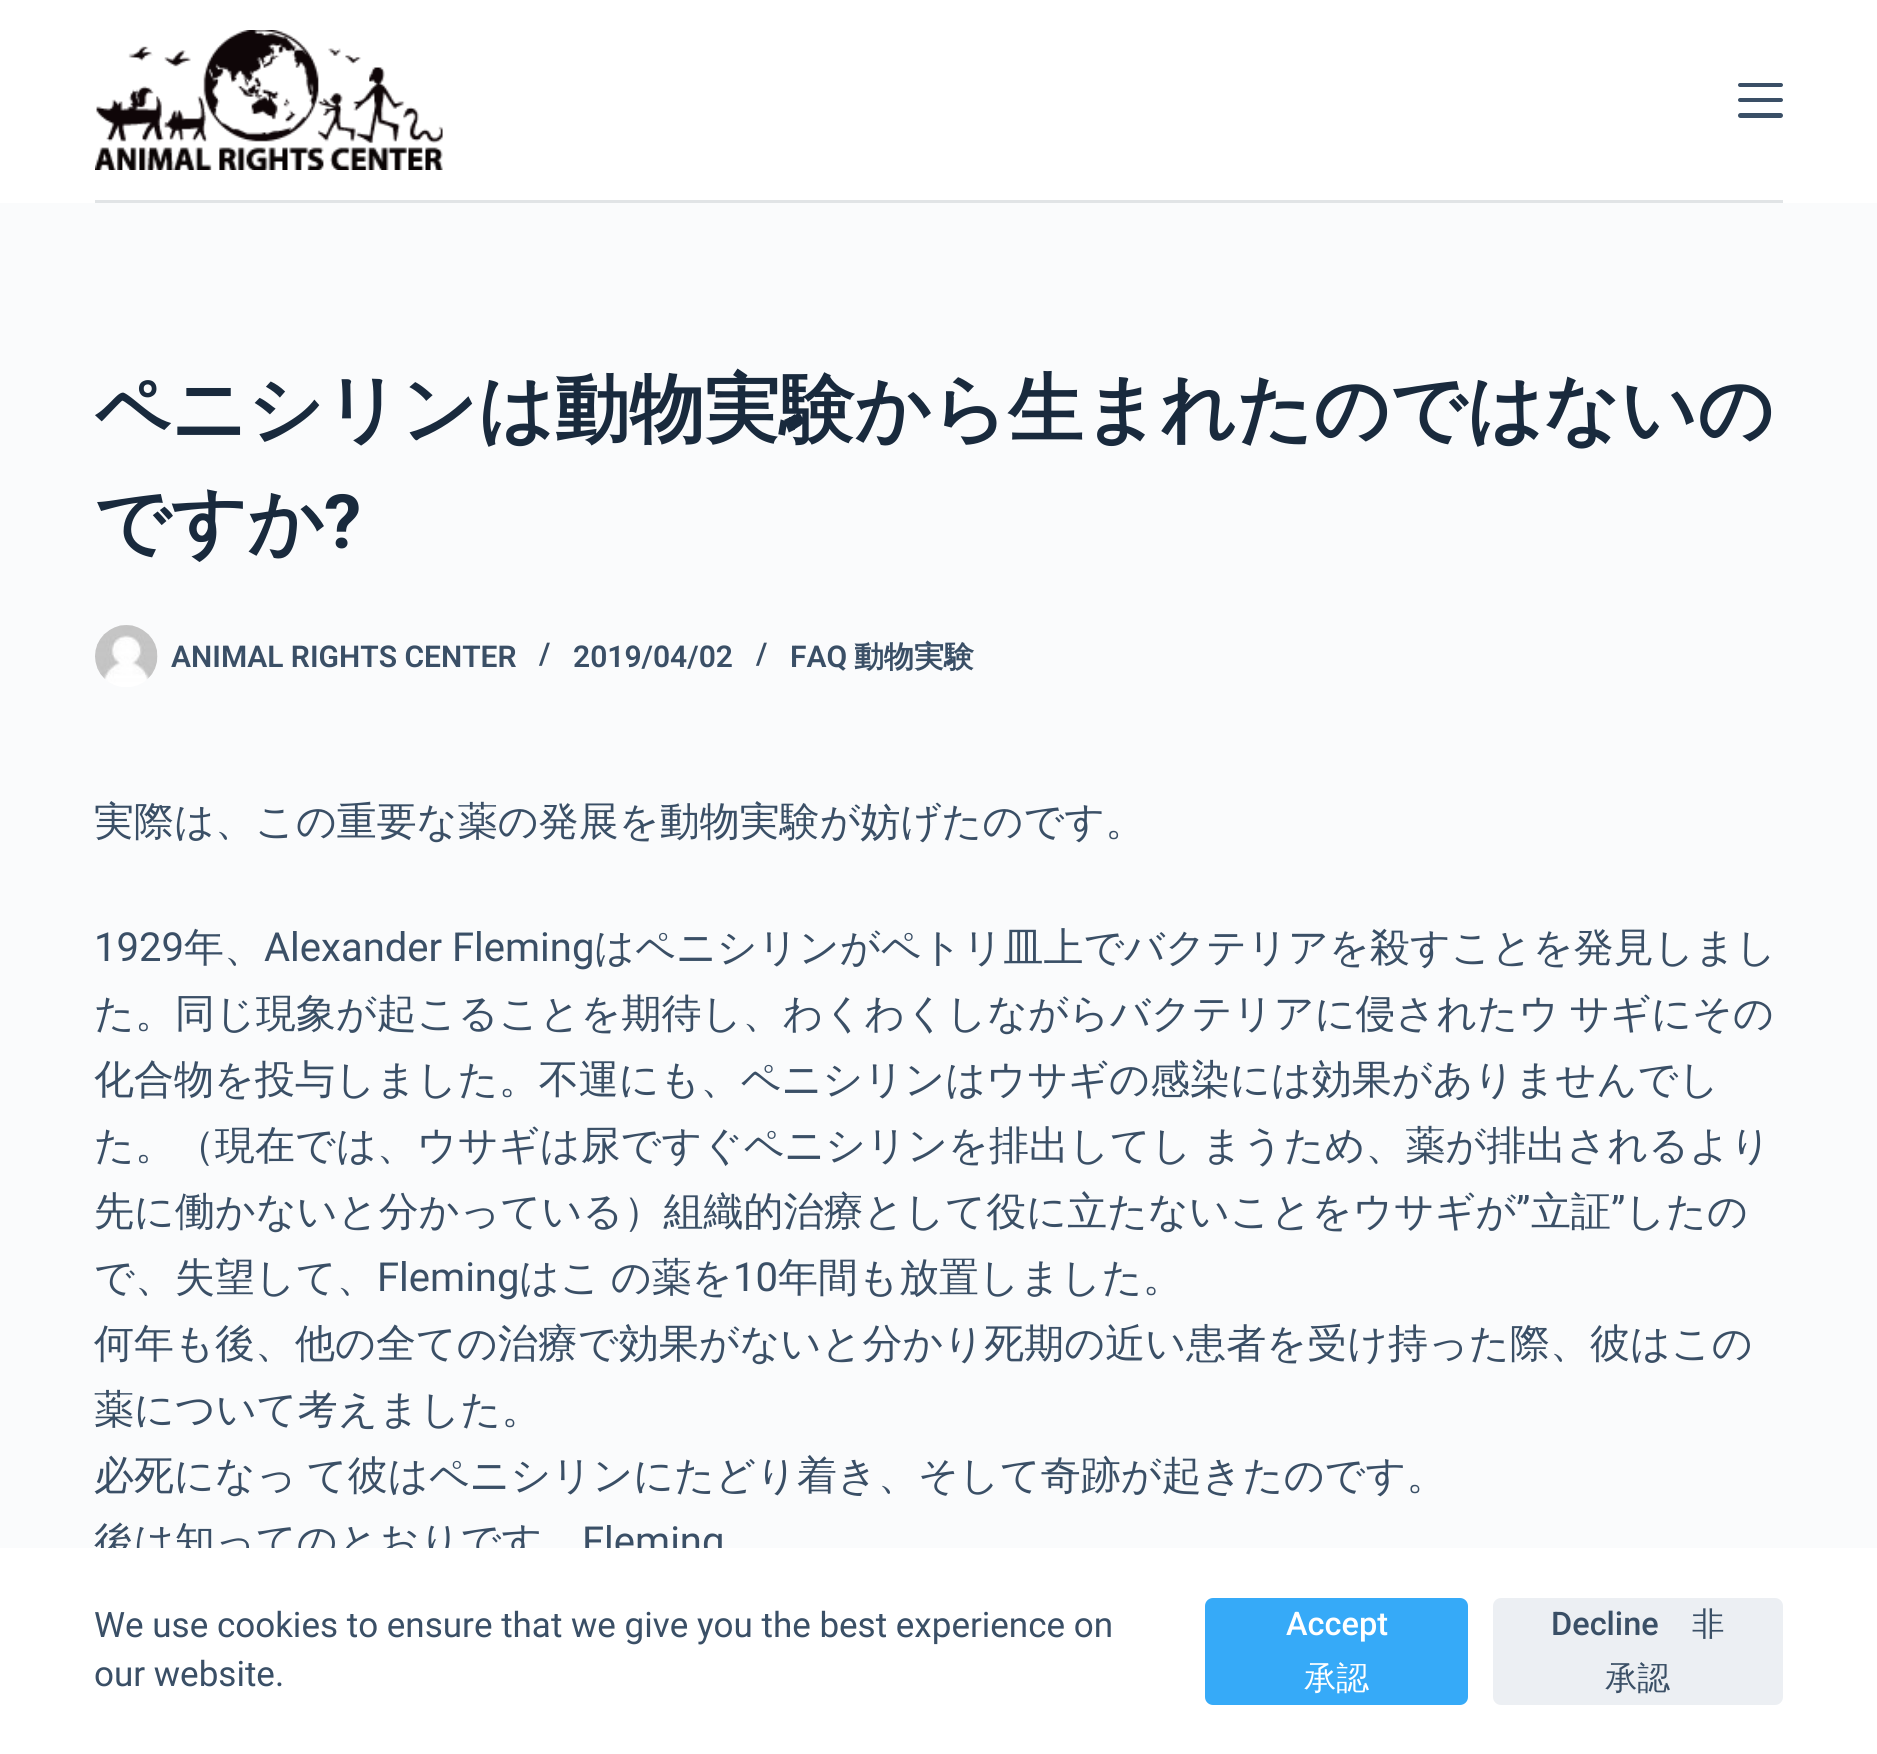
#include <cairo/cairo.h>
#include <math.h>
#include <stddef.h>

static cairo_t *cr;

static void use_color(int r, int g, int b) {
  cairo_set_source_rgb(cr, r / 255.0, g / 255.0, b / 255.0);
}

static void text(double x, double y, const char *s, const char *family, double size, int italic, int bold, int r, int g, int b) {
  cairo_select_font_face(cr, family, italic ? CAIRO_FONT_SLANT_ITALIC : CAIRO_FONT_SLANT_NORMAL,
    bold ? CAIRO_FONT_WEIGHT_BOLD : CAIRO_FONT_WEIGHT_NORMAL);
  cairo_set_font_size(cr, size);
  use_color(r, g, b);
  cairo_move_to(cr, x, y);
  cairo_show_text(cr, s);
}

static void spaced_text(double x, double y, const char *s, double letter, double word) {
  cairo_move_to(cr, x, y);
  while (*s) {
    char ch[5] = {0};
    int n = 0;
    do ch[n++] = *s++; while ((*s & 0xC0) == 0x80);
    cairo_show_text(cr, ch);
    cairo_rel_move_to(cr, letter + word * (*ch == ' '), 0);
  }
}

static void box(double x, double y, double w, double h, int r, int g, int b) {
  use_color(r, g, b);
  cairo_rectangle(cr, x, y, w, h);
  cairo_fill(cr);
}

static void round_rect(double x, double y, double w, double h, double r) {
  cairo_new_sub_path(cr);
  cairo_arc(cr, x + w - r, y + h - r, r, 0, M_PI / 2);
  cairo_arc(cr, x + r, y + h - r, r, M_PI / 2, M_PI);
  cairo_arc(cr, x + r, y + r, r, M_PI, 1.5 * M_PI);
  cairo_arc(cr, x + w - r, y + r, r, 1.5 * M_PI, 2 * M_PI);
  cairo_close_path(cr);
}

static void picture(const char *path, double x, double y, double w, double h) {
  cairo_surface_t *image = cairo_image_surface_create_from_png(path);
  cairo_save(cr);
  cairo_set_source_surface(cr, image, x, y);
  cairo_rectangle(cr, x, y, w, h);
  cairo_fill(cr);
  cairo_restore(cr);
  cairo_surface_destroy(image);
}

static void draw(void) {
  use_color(250, 251, 252);
  cairo_paint(cr);
  box(0, 0, 1877, 203, 255, 255, 255);
  box(95, 200, 1688, 3, 225, 228, 230);
  picture("img_01.png", 95, 30, 348, 140);
  use_color(58, 79, 102);
  round_rect(1738, 83, 45, 4, 2);
  cairo_fill(cr);
  round_rect(1738, 98, 45, 4, 2);
  cairo_fill(cr);
  round_rect(1738, 113, 45, 5, 2.5);
  cairo_fill(cr);
  picture("img_02.png", 95, 625, 63, 62);
  text(94, 435, "ペニシリンは動物実験から生まれたのではないの", "WenQuanYi Zen Hei", 75, 0, 1, 25, 42, 61);
  text(94, 548, "ですか", "WenQuanYi Zen Hei", 75, 0, 1, 25, 42, 61);
  text(324, 548, "?", "Roboto", 75, 0, 1, 25, 42, 61);
  text(171, 667, "ANIMAL RIGHTS CENTER", "Roboto SemiBold", 30, 0, 0, 58, 79, 102);
  text(539, 664, "/", "Roboto SemiBold", 30, 0, 0, 58, 79, 102);
  text(573, 667, "2019/04/02", "Roboto SemiBold", 30, 0, 0, 58, 79, 102);
  text(756, 664, "/", "Roboto SemiBold", 30, 0, 0, 58, 79, 102);
  text(790, 667, "FAQ", "Roboto SemiBold", 30, 0, 0, 58, 79, 102);
  text(854, 667, "動物実験", "WenQuanYi Zen Hei", 30, 0, 1, 58, 79, 102);
  text(94, 835, "実際は、この重要な薬の発展を動物実験が妨げたのです。", "WenQuanYi Zen Hei Medium", 40, 0, 0, 58, 79, 102);
  text(94, 961, "1929", "Roboto", 40, 0, 0, 58, 79, 102);
  text(184, 961, "年、", "WenQuanYi Zen Hei Medium", 40, 0, 0, 58, 79, 102);
  text(264, 961, "Alexander Fleming", "Roboto", 40, 0, 0, 58, 79, 102);
  text(594, 961, "はペニシリンがペトリ皿上でバクテリアを殺すことを発見しまし", "WenQuanYi Zen Hei Medium", 40, 0, 0, 58, 79, 102);
  spaced_text(94, 1027, "た。同じ現象が起こることを期待し、わくわくしながらバクテリアに侵されたウ サギにその", 0, -2);
  text(94, 1093, "化合物を投与しました。不運にも、ペニシリンはウサギの感染には効果がありませんでし", "WenQuanYi Zen Hei Medium", 40, 0, 0, 58, 79, 102);
  spaced_text(94, 1159, "た。（現在では、ウサギは尿ですぐペニシリンを排出してし まうため、薬が排出されるより", 0, -2);
  text(94, 1225, "先に働かないと分かっている）組織的治療として役に立たないことをウサギが", "WenQuanYi Zen Hei Medium", 40, 0, 0, 58, 79, 102);
  text(1516, 1225, "”", "Roboto", 40, 0, 0, 58, 79, 102);
  text(1531, 1225, "立証", "WenQuanYi Zen Hei Medium", 40, 0, 0, 58, 79, 102);
  text(1611, 1225, "”", "Roboto", 40, 0, 0, 58, 79, 102);
  text(1625, 1225, "したの", "WenQuanYi Zen Hei Medium", 40, 0, 0, 58, 79, 102);
  text(94, 1291, "で、失望して、", "WenQuanYi Zen Hei Medium", 40, 0, 0, 58, 79, 102);
  text(377, 1291, "Fleming", "Roboto", 40, 0, 0, 58, 79, 102);
  cairo_select_font_face(cr, "WenQuanYi Zen Hei Medium", CAIRO_FONT_SLANT_NORMAL, CAIRO_FONT_WEIGHT_NORMAL);
  spaced_text(519, 1291, "はこ の薬を", 0, -2);
  text(733, 1291, "10", "Roboto", 40, 0, 0, 58, 79, 102);
  text(778, 1291, "年間も放置しました。", "WenQuanYi Zen Hei Medium", 40, 0, 0, 58, 79, 102);
  text(94, 1357, "何年も後、他の全ての治療で効果がないと分かり死期の近い患者を受け持った際、彼はこの", "WenQuanYi Zen Hei Medium", 40, 0, 0, 58, 79, 102);
  text(94, 1423, "薬について考えました。", "WenQuanYi Zen Hei Medium", 40, 0, 0, 58, 79, 102);
  spaced_text(94, 1489, "必死になっ て彼はペニシリンにたどり着き、そして奇跡が起きたのです。", 0, -2);
  text(94, 1555, "後は知ってのとおりです", "WenQuanYi Zen Hei Medium", 40, 0, 0, 58, 79, 102);
  text(582, 1555, "Fleming", "Roboto", 40, 0, 0, 58, 79, 102);
  box(0, 1548, 1877, 206, 255, 255, 255);
  text(94, 1637, "We use cookies to ensure that we give you the best experience on", "Roboto", 35, 0, 0, 58, 79, 102);
  text(94, 1686, "our website.", "Roboto", 35, 0, 0, 58, 79, 102);
  use_color(54, 170, 248);
  round_rect(1205, 1598, 263, 107, 8);
  cairo_fill(cr);
  text(1286, 1635, "Accept", "Roboto Medium", 32.5, 0, 0, 255, 255, 255);
  text(1304, 1689, "承認", "WenQuanYi Zen Hei Medium", 32.5, 0, 0, 255, 255, 255);
  use_color(236, 239, 243);
  round_rect(1493, 1598, 290, 107, 8);
  cairo_fill(cr);
  text(1551, 1635, "Decline", "Roboto Medium", 32.5, 0, 0, 58, 79, 102);
  text(1692, 1635, "非", "WenQuanYi Zen Hei Medium", 32.5, 0, 0, 58, 79, 102);
  text(1605, 1689, "承認", "WenQuanYi Zen Hei Medium", 32.5, 0, 0, 58, 79, 102);
}

int main(void) {
  cairo_surface_t *surface = cairo_image_surface_create(CAIRO_FORMAT_RGB24, 1877, 1754);
  cr = cairo_create(surface);
  cairo_font_options_t *options = cairo_font_options_create();
  cairo_font_options_set_hint_metrics(options, CAIRO_HINT_METRICS_OFF);
  cairo_font_options_set_hint_style(options, CAIRO_HINT_STYLE_NONE);
  cairo_set_font_options(cr, options);
  cairo_set_miter_limit(cr, 4);
  draw();
  cairo_surface_write_to_png(surface, "out.png");
  cairo_font_options_destroy(options);
  cairo_destroy(cr);
  cairo_surface_destroy(surface);
  return 0;
}
